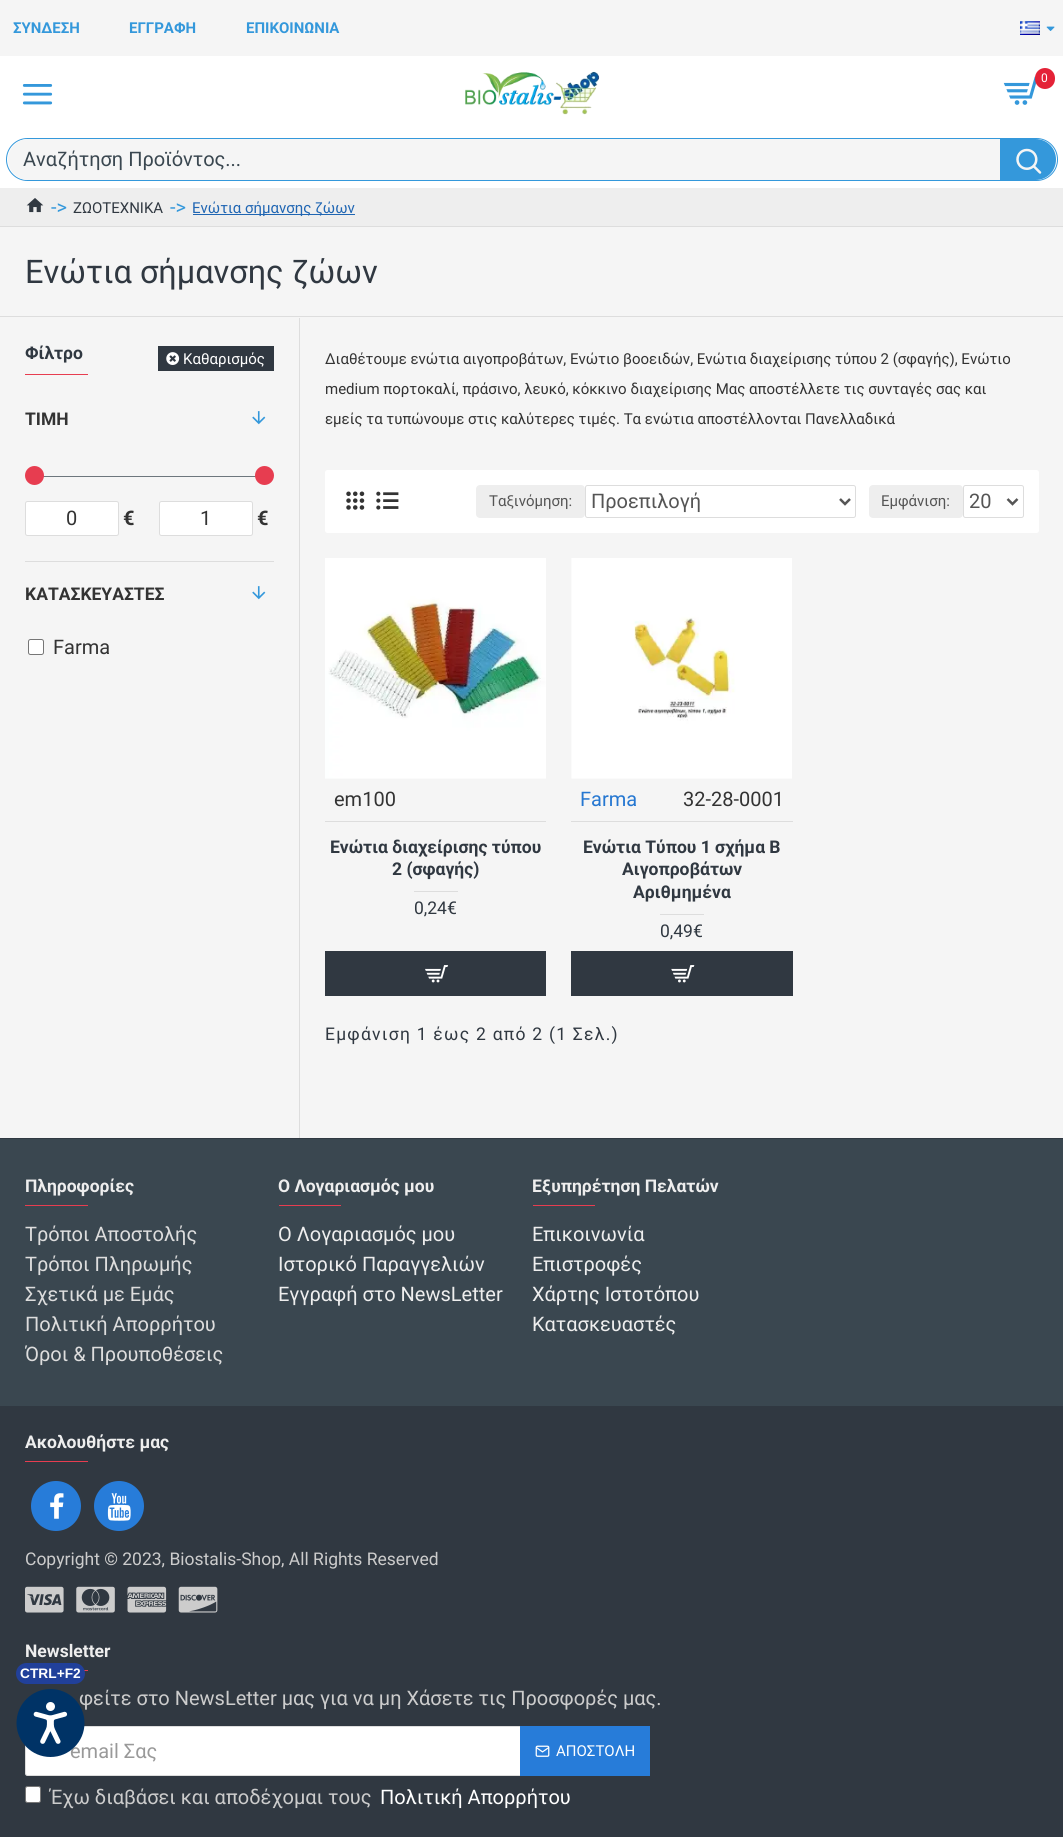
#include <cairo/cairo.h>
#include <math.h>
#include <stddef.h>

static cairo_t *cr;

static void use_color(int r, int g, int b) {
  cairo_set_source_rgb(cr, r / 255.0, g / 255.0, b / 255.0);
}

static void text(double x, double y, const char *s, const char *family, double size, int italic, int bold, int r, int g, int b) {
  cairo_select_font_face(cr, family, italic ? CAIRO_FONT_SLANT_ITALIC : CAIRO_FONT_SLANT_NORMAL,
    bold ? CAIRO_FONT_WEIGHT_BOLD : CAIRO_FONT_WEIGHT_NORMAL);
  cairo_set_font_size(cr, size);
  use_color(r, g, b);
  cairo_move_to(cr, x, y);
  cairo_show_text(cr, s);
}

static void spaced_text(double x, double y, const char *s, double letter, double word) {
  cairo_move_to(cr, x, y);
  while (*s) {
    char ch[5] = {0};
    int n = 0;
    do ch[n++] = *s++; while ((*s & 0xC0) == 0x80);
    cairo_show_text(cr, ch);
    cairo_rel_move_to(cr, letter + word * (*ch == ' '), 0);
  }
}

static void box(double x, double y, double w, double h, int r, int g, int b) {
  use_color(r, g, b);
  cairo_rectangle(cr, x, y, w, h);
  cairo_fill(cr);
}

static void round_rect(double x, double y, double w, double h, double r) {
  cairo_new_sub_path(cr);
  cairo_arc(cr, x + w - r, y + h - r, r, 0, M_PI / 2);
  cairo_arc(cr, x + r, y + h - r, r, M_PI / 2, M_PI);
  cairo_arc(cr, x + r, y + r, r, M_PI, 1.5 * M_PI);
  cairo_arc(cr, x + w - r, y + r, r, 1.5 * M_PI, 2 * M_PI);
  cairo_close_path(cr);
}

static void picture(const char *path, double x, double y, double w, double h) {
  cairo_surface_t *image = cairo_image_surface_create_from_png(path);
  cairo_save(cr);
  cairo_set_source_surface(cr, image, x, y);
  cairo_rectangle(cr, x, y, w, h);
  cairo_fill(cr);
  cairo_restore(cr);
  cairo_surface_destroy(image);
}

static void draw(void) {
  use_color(245, 245, 245);
  cairo_paint(cr);
  picture("img_01.png", 1020, 21, 20, 14);
  picture("img_02.png", 1046, 26, 9, 5);
  box(0, 56, 1063, 132, 255, 255, 255);
  picture("img_03.png", 465, 71, 135, 44);
  picture("img_04.png", 1003, 76, 34, 29);
  use_color(228, 34, 55);
  round_rect(1035, 68, 20, 21, 10);
  cairo_fill(cr);
  picture("img_05.png", 22, 84, 31, 21);
  round_rect(6.5, 138.5, 1051, 42, 21);
  use_color(52, 152, 219);
  cairo_set_line_width(cr, 1);
  cairo_stroke(cr);
  use_color(245, 245, 245);
  cairo_new_path(cr);
  cairo_move_to(cr, 28.5, 139);
  cairo_line_to(cr, 1000, 139);
  cairo_line_to(cr, 1000, 180);
  cairo_line_to(cr, 28.5, 180);
  cairo_curve_to(cr, 17, 180, 8, 171, 8, 159.5);
  cairo_curve_to(cr, 8, 148, 17, 139, 28.5, 139);
  cairo_close_path(cr);
  cairo_fill(cr);
  use_color(52, 152, 219);
  cairo_new_path(cr);
  cairo_move_to(cr, 1000, 139);
  cairo_line_to(cr, 1035.5, 139);
  cairo_curve_to(cr, 1047, 139, 1056, 148, 1056, 159.5);
  cairo_curve_to(cr, 1056, 171, 1047, 180, 1035.5, 180);
  cairo_line_to(cr, 1000, 180);
  cairo_close_path(cr);
  cairo_fill(cr);
  picture("img_06.png", 1016, 148, 26, 26);
  box(0, 188, 1063, 38, 238, 238, 238);
  box(0, 226, 1063, 1, 221, 221, 221);
  picture("img_07.png", 26, 198, 18, 15);
  box(193, 214, 162, 1, 32, 102, 179);
  box(0, 316, 1063, 1, 221, 221, 221);
  box(299, 318, 1, 820, 221, 221, 221);
  box(158, 346, 116, 25, 48, 56, 65);
  picture("img_08.png", 166, 352, 14, 13);
  box(25, 374, 63, 1, 231, 61, 80);
  picture("img_09.png", 252, 411, 14, 14);
  use_color(109, 118, 125);
  cairo_new_path(cr);
  cairo_move_to(cr, 41, 476);
  cairo_line_to(cr, 259, 476);
  cairo_line_to(cr, 265, 476);
  cairo_line_to(cr, 263, 477);
  cairo_line_to(cr, 259, 477);
  cairo_line_to(cr, 41, 477);
  cairo_line_to(cr, 35, 476);
  cairo_line_to(cr, 37, 476);
  cairo_close_path(cr);
  cairo_fill(cr);
  use_color(231, 61, 80);
  cairo_arc(cr, 34.5, 475.5, 9.5, 0, 2 * M_PI);
  cairo_fill(cr);
  cairo_arc(cr, 264.5, 475.5, 9.5, 0, 2 * M_PI);
  cairo_fill(cr);
  use_color(255, 255, 255);
  round_rect(25.5, 501.5, 93, 34, 2);
  cairo_fill_preserve(cr);
  use_color(221, 221, 221);
  cairo_stroke(cr);
  use_color(255, 255, 255);
  round_rect(159.5, 501.5, 93, 34, 2);
  cairo_fill_preserve(cr);
  use_color(221, 221, 221);
  cairo_stroke(cr);
  box(25, 561, 249, 1, 221, 221, 221);
  picture("img_09.png", 252, 586, 14, 14);
  use_color(255, 255, 255);
  round_rect(28.5, 639.5, 15, 15, 2);
  cairo_fill_preserve(cr);
  use_color(118, 118, 118);
  cairo_stroke(cr);
  use_color(255, 255, 255);
  round_rect(325, 470, 714, 63, 2.5);
  cairo_fill(cr);
  picture("img_10.png", 346, 491, 19, 19);
  picture("img_11.png", 376, 491, 23, 19);
  use_color(238, 238, 238);
  round_rect(476, 485, 109, 33, 4);
  cairo_fill(cr);
  round_rect(585.5, 485.5, 270, 32, 2);
  use_color(221, 221, 221);
  cairo_stroke(cr);
  cairo_new_path(cr);
  cairo_move_to(cr, 840, 499);
  cairo_line_to(cr, 845, 504);
  cairo_line_to(cr, 850, 499);
  use_color(85, 85, 85);
  cairo_set_line_width(cr, 2.5);
  cairo_stroke(cr);
  use_color(238, 238, 238);
  round_rect(869, 485, 94, 33, 4);
  cairo_fill(cr);
  round_rect(963.5, 485.5, 60, 32, 2);
  use_color(221, 221, 221);
  cairo_set_line_width(cr, 1);
  cairo_stroke(cr);
  cairo_new_path(cr);
  cairo_move_to(cr, 1007.5, 499);
  cairo_line_to(cr, 1012.5, 504);
  cairo_line_to(cr, 1017.5, 499);
  use_color(85, 85, 85);
  cairo_set_line_width(cr, 2.5);
  cairo_stroke(cr);
  picture("img_12.png", 325, 558, 221, 221);
  box(325, 821, 221, 1, 221, 221, 221);
  box(414, 891, 44, 1, 221, 221, 221);
  box(325, 951, 221, 45, 48, 56, 65);
  picture("img_13.png", 425, 965, 24, 18);
  picture("img_14.png", 571, 558, 221, 221);
  box(571, 821, 222, 1, 221, 221, 221);
  box(660, 914, 44, 1, 221, 221, 221);
  box(571, 951, 222, 45, 48, 56, 65);
  picture("img_15.png", 671, 965, 24, 18);
  box(0, 1139, 1063, 267, 58, 71, 80);
  box(0, 1138, 1063, 1, 48, 56, 65);
  box(25, 1205, 63, 1, 231, 61, 80);
  box(279, 1205, 62, 1, 231, 61, 80);
  box(533, 1205, 62, 1, 231, 61, 80);
  box(0, 1406, 1063, 431, 48, 56, 65);
  box(25, 1461, 63, 1, 231, 61, 80);
  use_color(39, 124, 217);
  cairo_arc(cr, 56, 1506, 25, 0, 2 * M_PI);
  cairo_fill(cr);
  picture("img_16.png", 50, 1493, 14, 26);
  cairo_arc(cr, 119, 1506, 25, 0, 2 * M_PI);
  cairo_fill(cr);
  picture("img_17.png", 107, 1493, 24, 28);
  picture("img_18.png", 25, 1586, 39, 27);
  picture("img_19.png", 76, 1586, 39, 27);
  picture("img_20.png", 127, 1586, 40, 27);
  picture("img_21.png", 178, 1586, 40, 27);
  box(84, 1670, 4, 1, 231, 61, 80);
  use_color(255, 255, 255);
  round_rect(25.5, 1726.5, 624, 49, 2);
  cairo_fill_preserve(cr);
  use_color(221, 221, 221);
  cairo_set_line_width(cr, 1);
  cairo_stroke(cr);
  box(520, 1726, 130, 50, 39, 124, 217);
  picture("img_22.png", 535, 1745, 15, 12);
  use_color(255, 255, 255);
  round_rect(25.5, 1786.5, 15, 16, 2);
  cairo_fill_preserve(cr);
  use_color(118, 118, 118);
  cairo_stroke(cr);
  use_color(33, 64, 154);
  round_rect(16, 1663, 69, 21, 10.5);
  cairo_fill(cr);
  text(13, 33, "ΣΥΝΔΕΣΗ", "Roboto", 15, 0, 1, 52, 152, 219);
  text(129, 33, "ΕΓΓΡΑΦΗ", "Roboto", 15, 0, 1, 52, 152, 219);
  text(246, 33, "ΕΠΙΚΟΙΝΩΝΙΑ", "Roboto", 15, 0, 1, 52, 152, 219);
  text(1041, 82, "0", "Roboto", 12, 0, 0, 255, 255, 255);
  text(23, 166, "Αναζήτηση Προϊόντος...", "Roboto", 20, 0, 0, 58, 71, 80);
  text(51, 214, "->", "Roboto", 20, 0, 0, 52, 152, 219);
  text(73, 213, "ΖΩΟΤΕΧΝΙΚΑ", "Roboto", 15, 0, 0, 48, 56, 65);
  text(170, 214, "->", "Roboto", 20, 0, 0, 52, 152, 219);
  text(192, 213, "Ενώτια σήμανσης ζώων", "Roboto", 15, 0, 0, 32, 102, 179);
  text(25, 283, "Ενώτια σήμανσης ζώων", "Roboto", 32.5, 0, 0, 48, 56, 65);
  text(25, 359, "Φίλτρο", "Roboto", 17.5, 0, 1, 48, 56, 65);
  text(183, 364, "Καθαρισμός", "Roboto", 15, 0, 0, 255, 255, 255);
  text(25, 425, "ΤΙΜΗ", "Roboto", 17.5, 0, 1, 51, 51, 51);
  text(66, 525, "0", "Roboto", 20, 0, 0, 51, 51, 51);
  text(123, 525, "€", "Roboto", 20, 0, 1, 51, 51, 51);
  text(200, 525, "1", "Roboto", 20, 0, 0, 51, 51, 51);
  text(257, 525, "€", "Roboto", 20, 0, 1, 51, 51, 51);
  text(25, 600, "ΚΑΤΑΣΚΕΥΑΣΤΕΣ", "Roboto", 17.5, 0, 1, 51, 51, 51);
  text(53, 654, "Farma", "Roboto", 20, 0, 0, 51, 51, 51);
  text(325, 364, "Διαθέτουμε ενώτια αιγοπροβάτων, Ενώτιο βοοειδών, Ενώτια διαχείρισης τύπου 2 (σφαγής), Ενώτιο", "Roboto", 15, 0, 0, 51, 51, 51);
  text(325, 394, "medium πορτοκαλί, πράσινο, λευκό, κόκκινο διαχείρισης Μας αποστέλλετε τις συνταγές σας και", "Roboto", 15, 0, 0, 51, 51, 51);
  text(325, 424, "εμείς τα τυπώνουμε στις καλύτερες τιμές. Τα ενώτια αποστέλλονται Πανελλαδικά", "Roboto", 15, 0, 0, 51, 51, 51);
  text(489, 506, "Ταξινόμηση:", "Roboto", 15, 0, 0, 85, 85, 85);
  text(591, 508, "Προεπιλογή", "Roboto", 20, 0, 0, 85, 85, 85);
  text(881, 506, "Εμφάνιση:", "Roboto", 15, 0, 0, 85, 85, 85);
  text(969, 508, "20", "Roboto", 20, 0, 0, 85, 85, 85);
  text(334, 806, "em100", "Roboto", 20, 0, 0, 51, 51, 51);
  text(330, 853, "Ενώτια διαχείρισης τύπου", "Roboto", 17.5, 0, 1, 48, 56, 65);
  text(392, 875, "2 (σφαγής)", "Roboto", 17.5, 0, 1, 48, 56, 65);
  text(414, 914, "0,24€", "Roboto", 17.5, 0, 0, 48, 56, 65);
  text(580, 806, "Farma", "Roboto", 20, 0, 0, 37, 119, 209);
  text(683, 806, "32-28-0001", "Roboto", 20, 0, 0, 51, 51, 51);
  text(583, 853, "Ενώτια Τύπου 1 σχήμα Β", "Roboto", 17.5, 0, 1, 48, 56, 65);
  text(622, 875, "Αιγοπροβάτων", "Roboto", 17.5, 0, 1, 48, 56, 65);
  text(633, 898, "Αριθμημένα", "Roboto", 17.5, 0, 1, 48, 56, 65);
  text(660, 937, "0,49€", "Roboto", 17.5, 0, 0, 48, 56, 65);
  spaced_text(325, 1040, "Εμφάνιση 1 έως 2 από 2 (1 Σελ.)", 1.25, 0);
  text(25, 1192, "Πληροφορίες", "Roboto", 17.5, 0, 1, 238, 238, 238);
  text(25, 1241, "Τρόποι Αποστολής", "Roboto", 20, 0, 0, 221, 221, 221);
  text(25, 1271, "Τρόποι Πληρωμής", "Roboto", 20, 0, 0, 221, 221, 221);
  text(25, 1301, "Σχετικά με Εμάς", "Roboto", 20, 0, 0, 221, 221, 221);
  text(25, 1331, "Πολιτική Απορρήτου", "Roboto", 20, 0, 0, 221, 221, 221);
  text(25, 1361, "Όροι & Προυποθέσεις", "Roboto", 20, 0, 0, 221, 221, 221);
  text(278, 1192, "Ο Λογαριασμός μου", "Roboto", 17.5, 0, 1, 238, 238, 238);
  text(278, 1241, "Ο Λογαριασμός μου", "Roboto", 20, 0, 0, 238, 238, 238);
  text(278, 1271, "Ιστορικό Παραγγελιών", "Roboto", 20, 0, 0, 238, 238, 238);
  text(278, 1301, "Εγγραφή στο NewsLetter", "Roboto", 20, 0, 0, 238, 238, 238);
  text(532, 1192, "Εξυπηρέτηση Πελατών", "Roboto", 17.5, 0, 1, 238, 238, 238);
  text(532, 1241, "Επικοινωνία", "Roboto", 20, 0, 0, 238, 238, 238);
  text(532, 1271, "Επιστροφές", "Roboto", 20, 0, 0, 238, 238, 238);
  text(532, 1301, "Χάρτης Ιστοτόπου", "Roboto", 20, 0, 0, 238, 238, 238);
  text(532, 1331, "Κατασκευαστές", "Roboto", 20, 0, 0, 238, 238, 238);
  text(25, 1448, "Ακολουθήστε μας", "Roboto", 17.5, 0, 1, 238, 238, 238);
  text(25, 1565, "Copyright © 2023, Biostalis-Shop, All Rights Reserved", "Roboto", 17.5, 0, 0, 204, 204, 204);
  text(25, 1657, "Newsletter", "Roboto", 17.5, 0, 1, 238, 238, 238);
  text(79, 1705, "φείτε στο NewsLetter μας για να μη Χάσετε τις Προσφορές μας.", "Roboto", 20, 0, 0, 204, 204, 204);
  text(70, 1758, "email Σας", "Roboto", 20, 0, 0, 153, 153, 153);
  text(556, 1756, "ΑΠΟΣΤΟΛΗ", "Roboto", 15, 0, 0, 255, 255, 255);
  text(50, 1804, "Έχω διαβάσει και αποδέχομαι τους", "Roboto", 20, 0, 0, 204, 204, 204);
  text(380, 1804, "Πολιτική Απορρήτου", "Roboto", 20, 0, 0, 255, 255, 255);
  text(20, 1678, "CTRL+F2", "Liberation Sans", 13.75, 0, 1, 255, 255, 255);
  picture("img_23.png", 16, 1689, 69, 68);
}

int main(void) {
  cairo_surface_t *surface = cairo_image_surface_create(CAIRO_FORMAT_RGB24, 1063, 1837);
  cr = cairo_create(surface);
  cairo_font_options_t *options = cairo_font_options_create();
  cairo_font_options_set_hint_metrics(options, CAIRO_HINT_METRICS_OFF);
  cairo_font_options_set_hint_style(options, CAIRO_HINT_STYLE_NONE);
  cairo_set_font_options(cr, options);
  cairo_set_miter_limit(cr, 4);
  draw();
  cairo_surface_write_to_png(surface, "out.png");
  cairo_font_options_destroy(options);
  cairo_destroy(cr);
  cairo_surface_destroy(surface);
  return 0;
}
